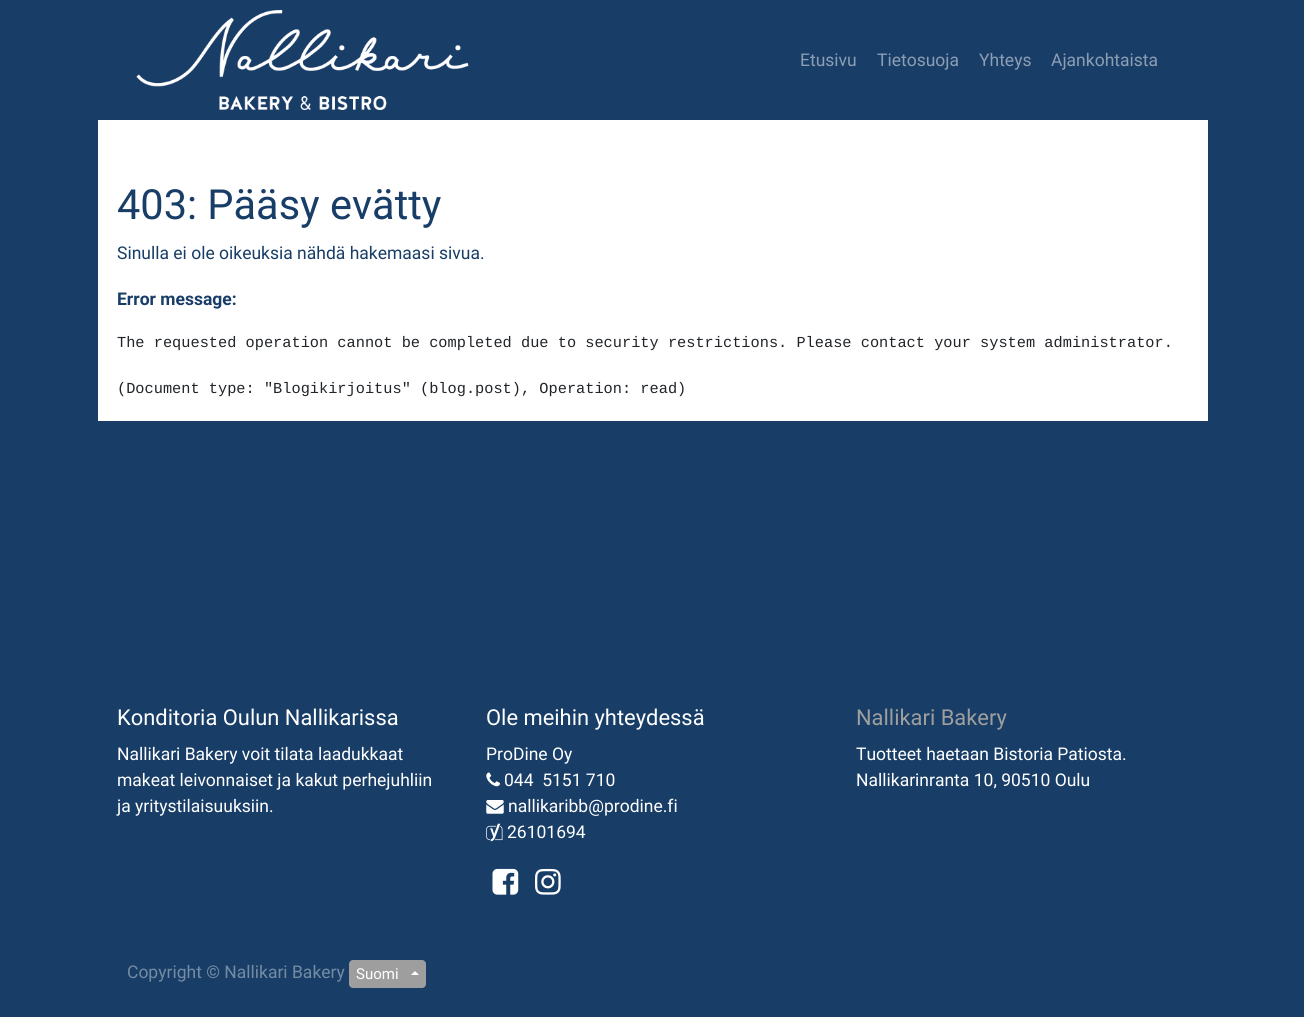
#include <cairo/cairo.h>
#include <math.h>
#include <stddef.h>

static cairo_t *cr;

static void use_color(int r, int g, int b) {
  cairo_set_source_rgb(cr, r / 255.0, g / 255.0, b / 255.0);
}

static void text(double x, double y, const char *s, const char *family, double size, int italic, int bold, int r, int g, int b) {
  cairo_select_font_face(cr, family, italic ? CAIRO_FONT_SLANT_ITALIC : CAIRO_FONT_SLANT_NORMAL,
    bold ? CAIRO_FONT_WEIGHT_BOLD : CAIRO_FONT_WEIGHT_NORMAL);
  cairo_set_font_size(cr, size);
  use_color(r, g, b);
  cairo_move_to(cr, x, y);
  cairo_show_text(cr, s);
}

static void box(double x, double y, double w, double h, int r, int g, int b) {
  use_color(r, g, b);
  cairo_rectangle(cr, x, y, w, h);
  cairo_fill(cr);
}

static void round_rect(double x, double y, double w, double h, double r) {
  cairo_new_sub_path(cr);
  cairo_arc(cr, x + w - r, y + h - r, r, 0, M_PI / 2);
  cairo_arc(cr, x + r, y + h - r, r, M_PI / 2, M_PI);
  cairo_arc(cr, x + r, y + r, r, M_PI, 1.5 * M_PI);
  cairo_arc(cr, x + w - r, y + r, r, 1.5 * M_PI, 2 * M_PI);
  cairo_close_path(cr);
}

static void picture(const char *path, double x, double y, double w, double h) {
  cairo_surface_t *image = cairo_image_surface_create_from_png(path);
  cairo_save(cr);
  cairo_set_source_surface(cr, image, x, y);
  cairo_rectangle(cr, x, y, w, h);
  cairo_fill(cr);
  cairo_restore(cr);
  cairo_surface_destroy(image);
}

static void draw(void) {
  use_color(24, 61, 103);
  cairo_paint(cr);
  picture("img_01.png", 136, 10, 333, 100);
  box(98, 120, 1110, 301, 255, 255, 255);
  picture("img_02.png", 486, 772, 14, 15);
  picture("img_03.png", 486, 800, 18, 14);
  picture("img_04.png", 486, 823, 17, 19);
  picture("img_05.png", 492, 868, 27, 27);
  picture("img_06.png", 535, 868, 26, 27);
  use_color(158, 158, 158);
  round_rect(349.5, 960.5, 76, 27, 3.5);
  cairo_fill_preserve(cr);
  cairo_set_line_width(cr, 1);
  cairo_stroke(cr);
  use_color(255, 255, 255);
  cairo_new_path(cr);
  cairo_move_to(cr, 419, 975);
  cairo_line_to(cr, 411, 975);
  cairo_line_to(cr, 415, 971);
  cairo_close_path(cr);
  cairo_fill(cr);
  text(800, 66, "Etusivu", "Roboto", 17.5, 0, 0, 140, 158, 179);
  text(877, 66, "Tietosuoja", "Roboto", 17.5, 0, 0, 140, 158, 179);
  text(979, 66, "Yhteys", "Roboto", 17.5, 0, 0, 140, 158, 179);
  text(1051, 66, "Ajankohtaista", "Roboto", 17.5, 0, 0, 140, 158, 179);
  text(117, 219, "403: Pääsy evätty", "Roboto", 41.5, 0, 0, 24, 61, 103);
  text(117, 259, "Sinulla ei ole oikeuksia nähdä hakemaasi sivua.", "Roboto", 17.5, 0, 0, 24, 61, 103);
  text(117, 305, "Error message:", "Roboto", 17.5, 0, 1, 24, 61, 103);
  text(117, 347, "The requested operation cannot be completed due to security restrictions. Please contact your system administrator.", "Liberation Mono", 15.3, 0, 0, 33, 37, 41);
  text(117, 393, "(Document type: \"Blogikirjoitus\" (blog.post), Operation: read)", "Liberation Mono", 15.3, 0, 0, 33, 37, 41);
  text(117, 725, "Konditoria Oulun Nallikarissa", "Roboto", 21.9, 0, 0, 255, 255, 255);
  text(117, 760, "Nallikari Bakery voit tilata laadukkaat", "Roboto", 17.5, 0, 0, 255, 255, 255);
  text(117, 786, "makeat leivonnaiset ja kakut perhejuhliin", "Roboto", 17.5, 0, 0, 255, 255, 255);
  text(117, 812, "ja yritystilaisuuksiin.", "Roboto", 17.5, 0, 0, 255, 255, 255);
  text(486, 725, "Ole meihin yhteydessä", "Roboto", 21.9, 0, 0, 255, 255, 255);
  text(486, 760, "ProDine Oy", "Roboto", 17.5, 0, 0, 255, 255, 255);
  text(504, 786, "044  5151 710", "Roboto", 17.5, 0, 0, 255, 255, 255);
  text(508, 812, "nallikaribb@prodine.fi", "Roboto", 17.5, 0, 0, 255, 255, 255);
  text(507, 838, "26101694", "Roboto", 17.5, 0, 0, 255, 255, 255);
  text(856, 725, "Nallikari Bakery", "Roboto", 21.9, 0, 0, 158, 158, 158);
  text(856, 760, "Tuotteet haetaan Bistoria Patiosta.", "Roboto", 17.5, 0, 0, 255, 255, 255);
  text(856, 786, "Nallikarinranta 10, 90510 Oulu", "Roboto", 17.5, 0, 0, 255, 255, 255);
  text(127, 978, "Copyright © Nallikari Bakery", "Roboto", 17.5, 0, 0, 116, 139, 164);
  text(356, 979, "Suomi", "Roboto", 15, 0, 0, 255, 255, 255);
}

int main(void) {
  cairo_surface_t *surface = cairo_image_surface_create(CAIRO_FORMAT_RGB24, 1304, 1017);
  cr = cairo_create(surface);
  cairo_font_options_t *options = cairo_font_options_create();
  cairo_font_options_set_hint_metrics(options, CAIRO_HINT_METRICS_OFF);
  cairo_font_options_set_hint_style(options, CAIRO_HINT_STYLE_NONE);
  cairo_set_font_options(cr, options);
  cairo_set_miter_limit(cr, 4);
  draw();
  cairo_surface_write_to_png(surface, "out.png");
  cairo_font_options_destroy(options);
  cairo_destroy(cr);
  cairo_surface_destroy(surface);
  return 0;
}
